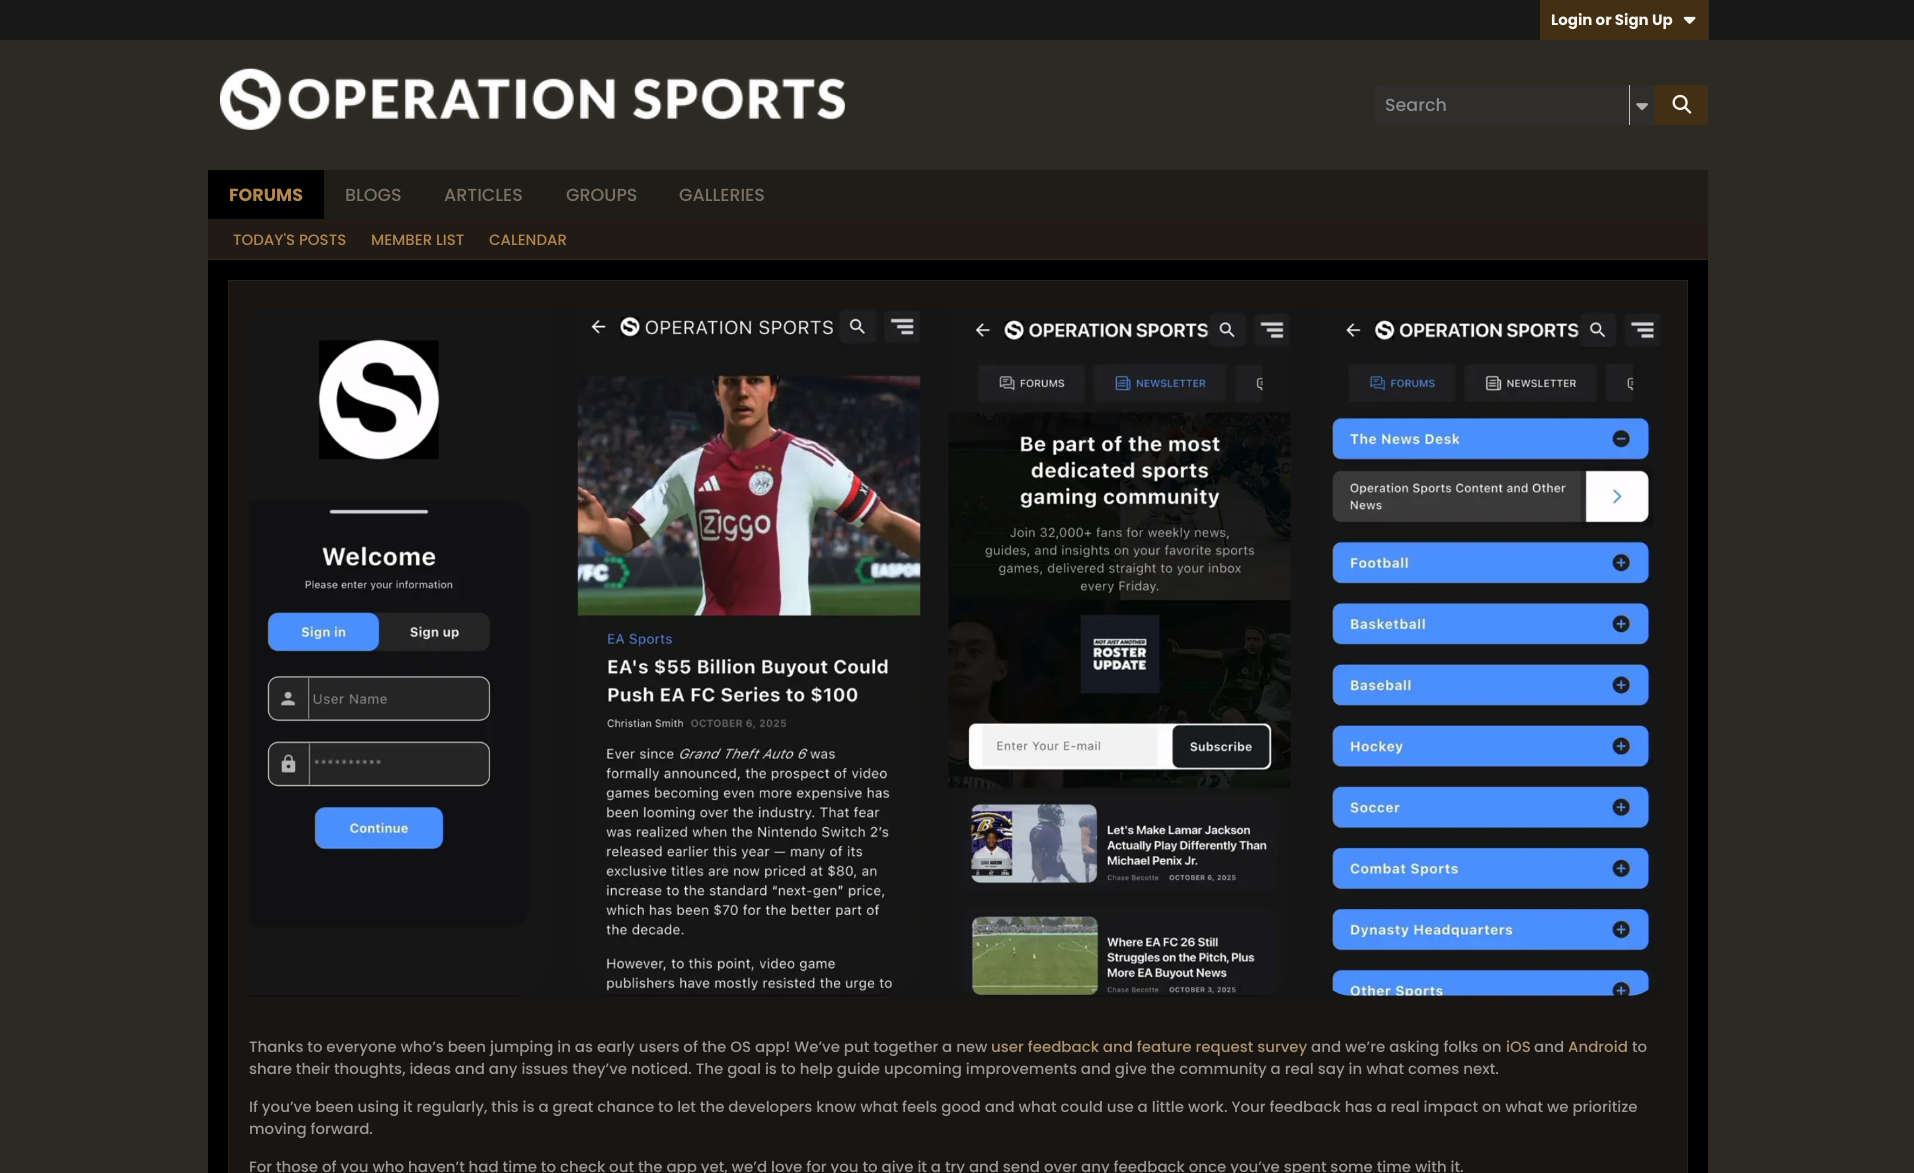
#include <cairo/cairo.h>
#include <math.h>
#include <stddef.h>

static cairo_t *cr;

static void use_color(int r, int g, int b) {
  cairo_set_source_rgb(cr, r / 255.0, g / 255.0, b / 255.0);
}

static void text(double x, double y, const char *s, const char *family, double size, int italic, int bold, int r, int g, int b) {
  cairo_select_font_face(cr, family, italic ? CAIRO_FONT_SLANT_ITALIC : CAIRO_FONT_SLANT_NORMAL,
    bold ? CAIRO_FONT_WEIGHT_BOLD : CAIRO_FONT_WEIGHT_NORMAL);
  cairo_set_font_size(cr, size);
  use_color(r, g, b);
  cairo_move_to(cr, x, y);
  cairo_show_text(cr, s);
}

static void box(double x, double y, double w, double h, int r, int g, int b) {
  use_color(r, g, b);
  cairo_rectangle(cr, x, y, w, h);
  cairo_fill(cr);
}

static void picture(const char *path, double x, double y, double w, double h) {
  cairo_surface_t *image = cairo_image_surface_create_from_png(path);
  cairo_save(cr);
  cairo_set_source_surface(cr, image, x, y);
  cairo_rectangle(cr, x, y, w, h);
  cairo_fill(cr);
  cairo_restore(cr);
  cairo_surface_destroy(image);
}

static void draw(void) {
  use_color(44, 42, 34);
  cairo_paint(cr);
  box(0, 0, 1914, 40, 25, 24, 24);
  box(1540, 0, 169, 40, 67, 47, 19);
  picture("img_01.png", 1683, 16, 13, 8);
  picture("img_02.png", 220, 68, 625, 62);
  use_color(48, 46, 45);
  cairo_new_path(cr);
  cairo_move_to(cr, 1379, 85);
  cairo_line_to(cr, 1655, 85);
  cairo_line_to(cr, 1655, 125);
  cairo_line_to(cr, 1379, 125);
  cairo_curve_to(cr, 1377, 125, 1375, 123, 1375, 121);
  cairo_line_to(cr, 1375, 89);
  cairo_curve_to(cr, 1375, 87, 1377, 85, 1379, 85);
  cairo_close_path(cr);
  cairo_fill(cr);
  box(1629, 85, 1, 40, 189, 189, 189);
  picture("img_03.png", 1636, 103, 12, 8);
  use_color(67, 47, 19);
  cairo_new_path(cr);
  cairo_move_to(cr, 1655.5, 85.5);
  cairo_line_to(cr, 1704, 85.5);
  cairo_curve_to(cr, 1706, 85.5, 1707.5, 87, 1707.5, 89);
  cairo_line_to(cr, 1707.5, 121);
  cairo_curve_to(cr, 1707.5, 123, 1706, 124.5, 1704, 124.5);
  cairo_line_to(cr, 1655.5, 124.5);
  cairo_close_path(cr);
  cairo_fill_preserve(cr);
  cairo_set_line_width(cr, 1);
  cairo_stroke(cr);
  picture("img_04.png", 1672, 94, 20, 20);
  box(324, 170, 1384, 49, 31, 29, 24);
  box(208, 170, 116, 49, 0, 0, 0);
  box(208, 219, 1500, 40, 34, 27, 21);
  box(208, 260, 1500, 913, 0, 0, 0);
  use_color(25, 21, 19);
  cairo_rectangle(cr, 228.5, 280.5, 1459, 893);
  cairo_fill_preserve(cr);
  use_color(40, 34, 31);
  cairo_stroke(cr);
  picture("img_05.png", 249, 308, 1412, 689);
  text(1551, 25, "Login or Sign Up", "Poppins", 15, 0, 1, 248, 246, 242);
  text(1385, 111, "Search", "Poppins Medium", 17.5, 0, 0, 137, 141, 145);
  text(229, 201, "FORUMS", "Poppins", 17.5, 0, 1, 177, 134, 79);
  text(345, 201, "BLOGS", "Poppins Medium", 17.5, 0, 0, 123, 113, 101);
  text(444, 201, "ARTICLES", "Poppins Medium", 17.5, 0, 0, 123, 113, 101);
  text(566, 201, "GROUPS", "Poppins Medium", 17.5, 0, 0, 123, 113, 101);
  text(679, 201, "GALLERIES", "Poppins Medium", 17.5, 0, 0, 123, 113, 101);
  text(233, 245, "TODAY'S POSTS", "Poppins Medium", 15, 0, 0, 177, 134, 79);
  text(371, 245, "MEMBER LIST", "Poppins Medium", 15, 0, 0, 177, 134, 79);
  text(489, 245, "CALENDAR", "Poppins Medium", 15, 0, 0, 177, 134, 79);
  text(249, 1052, "Thanks to everyone who’s been jumping in as early users of the OS app! We’ve put together a new", "Poppins Medium", 15, 0, 0, 154, 153, 153);
  text(991, 1052, "user feedback and feature request survey", "Poppins Medium", 15, 0, 0, 173, 147, 110);
  text(1311, 1052, "and we’re asking folks on", "Poppins Medium", 15, 0, 0, 154, 153, 153);
  text(1506, 1052, "iOS", "Poppins Medium", 15, 0, 0, 173, 147, 110);
  text(1534, 1052, "and", "Poppins Medium", 15, 0, 0, 154, 153, 153);
  text(1568, 1052, "Android", "Poppins Medium", 15, 0, 0, 173, 147, 110);
  text(1632, 1052, "to", "Poppins Medium", 15, 0, 0, 154, 153, 153);
  text(249, 1074, "share their thoughts, ideas and any issues they’ve noticed. The goal is to help guide upcoming improvements and give the community a real say in what comes next.", "Poppins Medium", 15, 0, 0, 154, 153, 153);
  text(249, 1112, "If you’ve been using it regularly, this is a great chance to let the developers know what feels good and what could use a little work. Your feedback has a real impact on what we prioritize", "Poppins Medium", 15, 0, 0, 154, 153, 153);
  text(249, 1134, "moving forward.", "Poppins Medium", 15, 0, 0, 154, 153, 153);
  text(249, 1172, "For those of you who haven’t had time to check out the app yet, we’d love for you to give it a try and send over any feedback once you’ve spent some time with it.", "Poppins Medium", 15, 0, 0, 154, 153, 153);
}

int main(void) {
  cairo_surface_t *surface = cairo_image_surface_create(CAIRO_FORMAT_RGB24, 1914, 1173);
  cr = cairo_create(surface);
  cairo_font_options_t *options = cairo_font_options_create();
  cairo_font_options_set_hint_metrics(options, CAIRO_HINT_METRICS_OFF);
  cairo_font_options_set_hint_style(options, CAIRO_HINT_STYLE_NONE);
  cairo_set_font_options(cr, options);
  cairo_set_miter_limit(cr, 4);
  draw();
  cairo_surface_write_to_png(surface, "out.png");
  cairo_font_options_destroy(options);
  cairo_destroy(cr);
  cairo_surface_destroy(surface);
  return 0;
}
